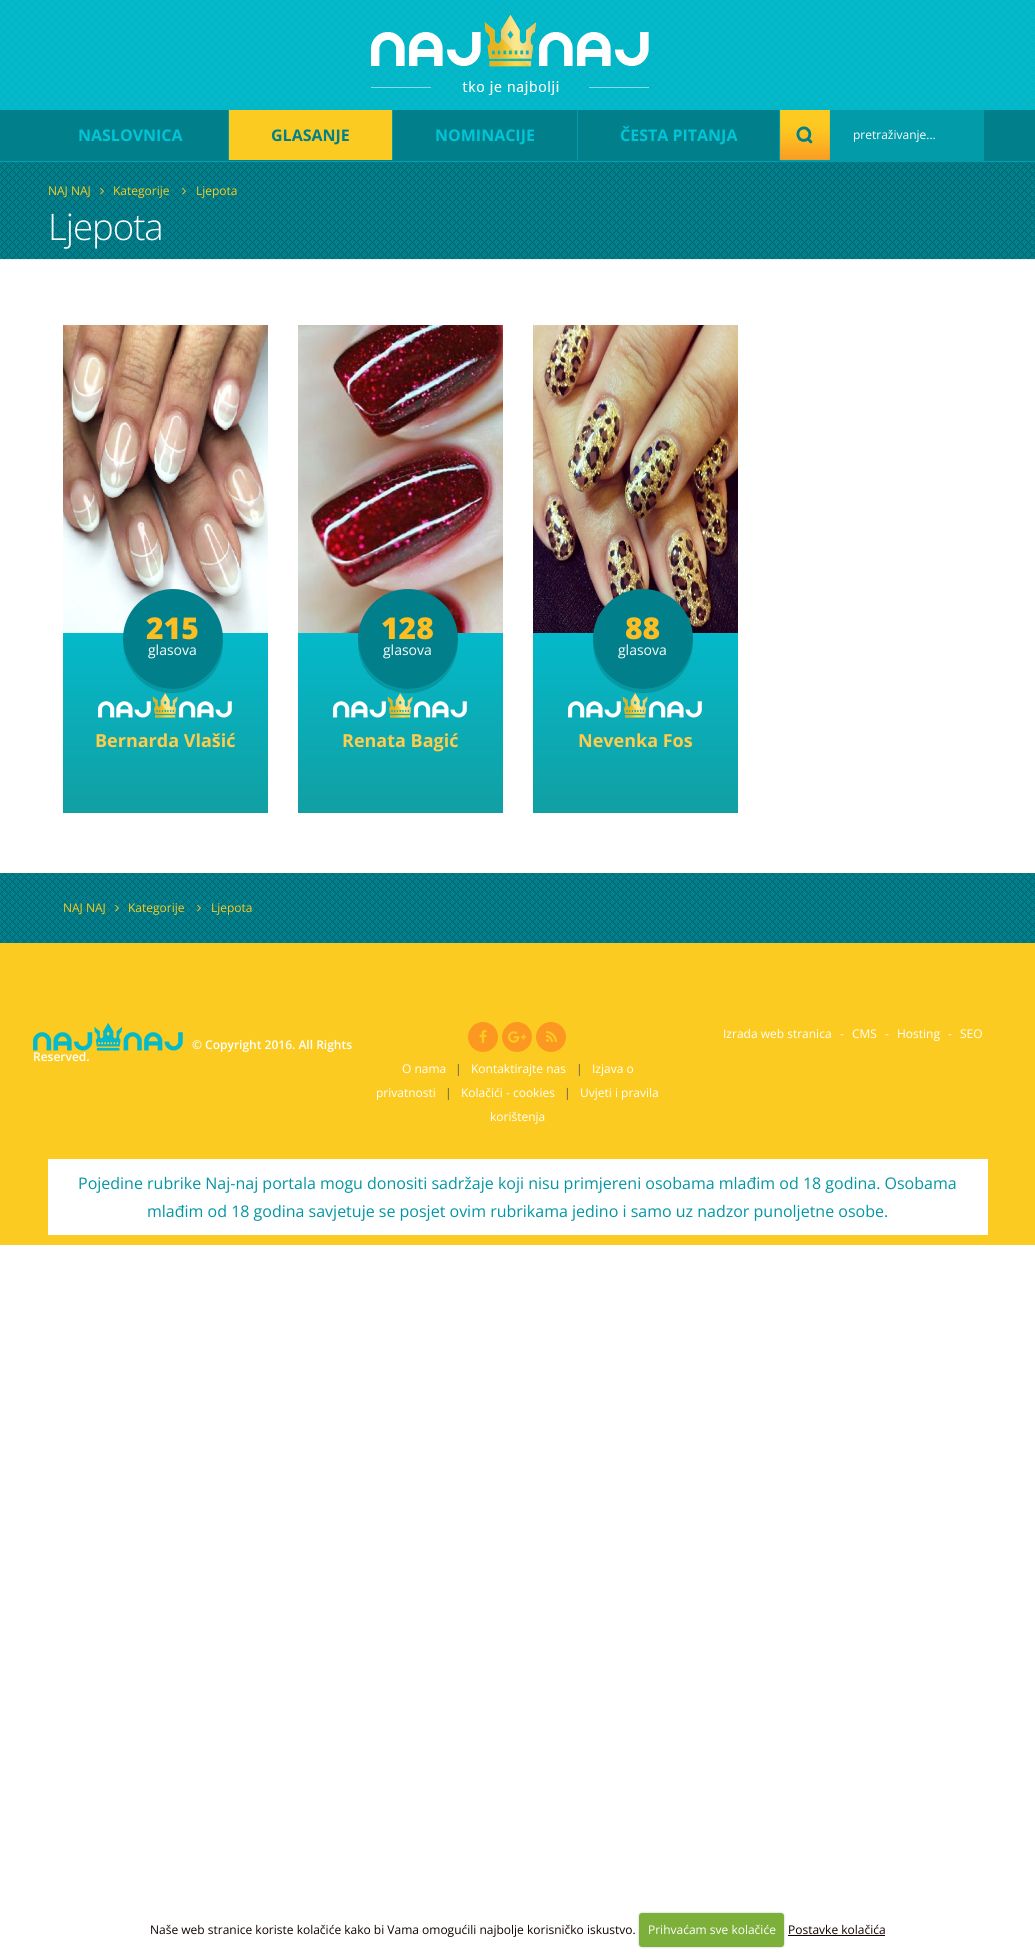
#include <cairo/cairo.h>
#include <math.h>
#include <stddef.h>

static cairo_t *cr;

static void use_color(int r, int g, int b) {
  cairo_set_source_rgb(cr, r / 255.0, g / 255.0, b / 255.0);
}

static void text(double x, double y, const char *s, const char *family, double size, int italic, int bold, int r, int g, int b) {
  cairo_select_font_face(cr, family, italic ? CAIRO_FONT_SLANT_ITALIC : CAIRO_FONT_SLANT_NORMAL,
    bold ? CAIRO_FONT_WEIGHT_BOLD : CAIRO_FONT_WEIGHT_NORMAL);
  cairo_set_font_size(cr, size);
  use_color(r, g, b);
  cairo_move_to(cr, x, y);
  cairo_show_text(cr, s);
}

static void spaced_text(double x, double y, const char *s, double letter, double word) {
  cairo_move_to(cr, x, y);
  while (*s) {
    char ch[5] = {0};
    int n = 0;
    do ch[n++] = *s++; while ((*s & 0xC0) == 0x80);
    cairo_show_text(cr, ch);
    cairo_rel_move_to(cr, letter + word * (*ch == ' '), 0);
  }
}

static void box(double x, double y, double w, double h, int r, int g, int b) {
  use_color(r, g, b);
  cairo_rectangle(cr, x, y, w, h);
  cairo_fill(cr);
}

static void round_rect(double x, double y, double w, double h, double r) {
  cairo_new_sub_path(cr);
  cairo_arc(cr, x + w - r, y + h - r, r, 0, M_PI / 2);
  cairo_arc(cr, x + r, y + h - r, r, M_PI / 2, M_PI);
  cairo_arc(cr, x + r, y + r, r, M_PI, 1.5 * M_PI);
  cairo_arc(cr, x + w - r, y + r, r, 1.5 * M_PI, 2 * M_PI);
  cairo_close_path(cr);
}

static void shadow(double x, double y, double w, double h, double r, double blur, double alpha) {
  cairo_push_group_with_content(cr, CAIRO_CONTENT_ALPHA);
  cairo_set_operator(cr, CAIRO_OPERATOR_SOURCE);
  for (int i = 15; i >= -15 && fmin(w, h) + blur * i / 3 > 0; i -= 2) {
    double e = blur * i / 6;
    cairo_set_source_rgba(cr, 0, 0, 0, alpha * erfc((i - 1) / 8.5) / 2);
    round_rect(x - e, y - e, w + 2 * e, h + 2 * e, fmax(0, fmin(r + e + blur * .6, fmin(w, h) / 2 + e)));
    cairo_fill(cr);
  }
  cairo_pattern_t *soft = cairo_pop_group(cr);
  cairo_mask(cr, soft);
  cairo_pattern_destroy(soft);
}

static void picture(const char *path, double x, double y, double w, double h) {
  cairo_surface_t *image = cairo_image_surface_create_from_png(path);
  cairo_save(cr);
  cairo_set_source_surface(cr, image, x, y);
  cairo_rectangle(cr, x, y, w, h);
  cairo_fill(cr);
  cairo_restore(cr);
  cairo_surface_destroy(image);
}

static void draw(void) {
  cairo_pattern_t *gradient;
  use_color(255, 255, 255);
  cairo_paint(cr);
  picture("img_01.png", 0, 0, 1035, 110);
  picture("img_02.png", 371, 15, 278, 80);
  box(0, 110, 1035, 51, 1, 127, 139);
  box(228, 110, 1, 50, 3, 156, 171);
  box(392, 110, 1, 50, 3, 156, 171);
  box(229, 110, 163, 50, 252, 203, 33);
  box(577, 110, 1, 50, 3, 156, 171);
  box(779, 110, 1, 50, 3, 156, 171);
  box(780, 110, 204, 51, 1, 155, 169);
  picture("img_03.png", 780, 110, 50, 50);
  picture("img_04.png", 0, 162, 1035, 97);
  box(0, 161, 1035, 1, 3, 156, 171);
  box(0, 259, 1035, 1, 238, 238, 238);
  picture("img_05.png", 100, 187, 4, 8);
  picture("img_06.png", 182, 187, 4, 8);
  picture("img_07.png", 63, 325, 205, 308);
  gradient = cairo_pattern_create_linear(166, 633, 166, 813);
  cairo_pattern_add_color_stop_rgba(gradient, 0, 0.016, 0.725, 0.792, 1);
  cairo_pattern_add_color_stop_rgba(gradient, 1, 0.067, 0.624, 0.639, 1);
  cairo_set_source(cr, gradient);
  cairo_pattern_destroy(gradient);
  cairo_rectangle(cr, 63, 633, 205, 180);
  cairo_fill(cr);
  picture("img_08.png", 98, 693, 134, 25);
  cairo_set_source_rgba(cr, 0, 0, 0, 0.15);
  cairo_new_path(cr);
  cairo_move_to(cr, 123, 641);
  cairo_curve_to(cr, 123, 652, 126, 662, 132, 671);
  cairo_curve_to(cr, 160, 713, 225, 691, 223, 641);
  cairo_curve_to(cr, 222, 668, 200, 689, 173, 689);
  cairo_curve_to(cr, 146, 689, 124, 668, 123, 641);
  cairo_close_path(cr);
  cairo_fill(cr);
  use_color(1, 127, 139);
  cairo_arc(cr, 173, 639, 50, 0, 2 * M_PI);
  cairo_fill(cr);
  picture("img_09.png", 298, 325, 205, 308);
  gradient = cairo_pattern_create_linear(401, 633, 401, 813);
  cairo_pattern_add_color_stop_rgba(gradient, 0, 0.016, 0.725, 0.792, 1);
  cairo_pattern_add_color_stop_rgba(gradient, 1, 0.067, 0.624, 0.639, 1);
  cairo_set_source(cr, gradient);
  cairo_pattern_destroy(gradient);
  cairo_rectangle(cr, 298, 633, 205, 180);
  cairo_fill(cr);
  picture("img_08.png", 333, 693, 134, 25);
  cairo_set_source_rgba(cr, 0, 0, 0, 0.15);
  cairo_new_path(cr);
  cairo_move_to(cr, 358, 641);
  cairo_curve_to(cr, 356, 691, 421, 713, 449, 671);
  cairo_curve_to(cr, 455, 662, 458, 652, 458, 641);
  cairo_curve_to(cr, 457, 668, 435, 689, 408, 689);
  cairo_curve_to(cr, 381, 689, 359, 668, 358, 641);
  cairo_close_path(cr);
  cairo_fill(cr);
  use_color(1, 127, 139);
  cairo_arc(cr, 408, 639, 50, 0, 2 * M_PI);
  cairo_fill(cr);
  picture("img_10.png", 533, 325, 205, 308);
  gradient = cairo_pattern_create_linear(636, 633, 636, 813);
  cairo_pattern_add_color_stop_rgba(gradient, 0, 0.016, 0.725, 0.792, 1);
  cairo_pattern_add_color_stop_rgba(gradient, 1, 0.067, 0.624, 0.639, 1);
  cairo_set_source(cr, gradient);
  cairo_pattern_destroy(gradient);
  cairo_rectangle(cr, 533, 633, 205, 180);
  cairo_fill(cr);
  picture("img_08.png", 568, 693, 134, 25);
  cairo_set_source_rgba(cr, 0, 0, 0, 0.15);
  cairo_new_path(cr);
  cairo_move_to(cr, 593, 641);
  cairo_curve_to(cr, 591, 691, 656, 713, 684, 671);
  cairo_curve_to(cr, 690, 662, 693, 652, 693, 641);
  cairo_curve_to(cr, 692, 668, 670, 689, 643, 689);
  cairo_curve_to(cr, 616, 689, 594, 668, 593, 641);
  cairo_close_path(cr);
  cairo_fill(cr);
  use_color(1, 127, 139);
  cairo_arc(cr, 643, 639, 50, 0, 2 * M_PI);
  cairo_fill(cr);
  picture("img_11.png", 0, 873, 1035, 70);
  picture("img_12.png", 115, 904, 4, 8);
  picture("img_13.png", 197, 904, 4, 8);
  box(0, 943, 1035, 302, 252, 203, 33);
  picture("img_14.png", 33, 1023, 150, 28);
  use_color(252, 152, 33);
  cairo_arc(cr, 483, 1037, 15, 0, 2 * M_PI);
  cairo_fill(cr);
  picture("img_15.png", 479, 1030, 8, 13);
  cairo_arc(cr, 517, 1037, 15, 0, 2 * M_PI);
  cairo_fill(cr);
  picture("img_16.png", 508, 1031, 18, 12);
  cairo_arc(cr, 551, 1037, 15, 0, 2 * M_PI);
  cairo_fill(cr);
  picture("img_17.png", 546, 1031, 11, 11);
  box(48, 1159, 940, 76, 255, 255, 255);
  use_color(0, 0, 0);
  shadow(639, 1913, 145, 34, 3, 1, 0.25);
  use_color(125, 175, 59);
  round_rect(639, 1913, 145, 34, 3);
  cairo_fill(cr);
  box(788, 1935, 97, 1, 17, 3, 0);
  text(78, 141, "NASLOVNICA", "Open Sans", 16, 0, 1, 0, 197, 215);
  text(271, 141, "GLASANJE", "Open Sans", 16, 0, 1, 1, 127, 139);
  text(435, 141, "NOMINACIJE", "Open Sans", 16, 0, 1, 0, 197, 215);
  text(620, 141, "ČESTA PITANJA", "Open Sans", 16, 0, 1, 0, 197, 215);
  text(853, 139, "pretraživanje...", "Open Sans", 12, 0, 0, 255, 255, 255);
  text(48, 195, "NAJ NAJ", "Open Sans", 12, 0, 0, 252, 203, 33);
  text(113, 195, "Kategorije", "Open Sans", 12, 0, 0, 252, 203, 33);
  text(196, 195, "Ljepota", "Open Sans", 12, 0, 0, 252, 203, 33);
  cairo_select_font_face(cr, "Open Sans Light", CAIRO_FONT_SLANT_NORMAL, CAIRO_FONT_WEIGHT_NORMAL);
  cairo_set_font_size(cr, 36.5);
  use_color(255, 255, 255);
  spaced_text(48, 240, "Ljepota", -1, 0);
  text(146, 639, "215", "Open Sans ExtraBold", 30, 0, 0, 252, 190, 33);
  text(148, 655, "glasova", "Open Sans", 14, 0, 0, 255, 255, 255);
  text(95, 747, "Bernarda Vlašić", "Open Sans", 18, 0, 1, 255, 204, 75);
  text(381, 639, "128", "Open Sans ExtraBold", 30, 0, 0, 252, 190, 33);
  text(383, 655, "glasova", "Open Sans", 14, 0, 0, 255, 255, 255);
  text(342, 747, "Renata Bagić", "Open Sans", 18, 0, 1, 255, 204, 75);
  text(625, 639, "88", "Open Sans ExtraBold", 30, 0, 0, 252, 190, 33);
  text(618, 655, "glasova", "Open Sans", 14, 0, 0, 255, 255, 255);
  text(578, 747, "Nevenka Fos", "Open Sans", 18, 0, 1, 255, 204, 75);
  text(63, 912, "NAJ NAJ", "Open Sans", 12, 0, 0, 252, 203, 33);
  text(128, 912, "Kategorije", "Open Sans", 12, 0, 0, 252, 203, 33);
  text(211, 912, "Ljepota", "Open Sans", 12, 0, 0, 252, 203, 33);
  text(723, 1038, "Izrada web stranica", "Open Sans", 12, 0, 0, 255, 255, 255);
  text(840, 1038, "-", "Open Sans", 12, 0, 0, 255, 255, 255);
  text(852, 1038, "CMS", "Open Sans", 12, 0, 0, 255, 255, 255);
  text(885, 1038, "-", "Open Sans", 12, 0, 0, 255, 255, 255);
  text(897, 1038, "Hosting", "Open Sans", 12, 0, 0, 255, 255, 255);
  text(948, 1038, "-", "Open Sans", 12, 0, 0, 255, 255, 255);
  text(960, 1038, "SEO", "Open Sans", 12, 0, 0, 255, 255, 255);
  text(192, 1049, "© Copyright 2016. All Rights", "Open Sans SemiBold", 12, 0, 0, 255, 255, 255);
  text(33, 1061, "Reserved.", "Open Sans SemiBold", 12, 0, 0, 255, 255, 255);
  text(402, 1073, "O nama", "Open Sans", 12, 0, 0, 255, 255, 255);
  text(455, 1073, "|", "Open Sans", 12, 0, 0, 85, 85, 85);
  text(471, 1073, "Kontaktirajte nas", "Open Sans", 12, 0, 0, 255, 255, 255);
  text(576, 1073, "|", "Open Sans", 12, 0, 0, 85, 85, 85);
  text(592, 1073, "Izjava o", "Open Sans", 12, 0, 0, 255, 255, 255);
  text(376, 1097, "privatnosti", "Open Sans", 12, 0, 0, 255, 255, 255);
  text(445, 1097, "|", "Open Sans", 12, 0, 0, 85, 85, 85);
  text(461, 1097, "Kolačići - cookies", "Open Sans", 12, 0, 0, 255, 255, 255);
  text(564, 1097, "|", "Open Sans", 12, 0, 0, 85, 85, 85);
  text(580, 1097, "Uvjeti i pravila", "Open Sans", 12, 0, 0, 255, 255, 255);
  text(490, 1121, "korištenja", "Open Sans", 12, 0, 0, 255, 255, 255);
  text(78, 1189, "Pojedine rubrike Naj-naj portala mogu donositi sadržaje koji nisu primjereni osobama mlađim od 18 godina. Osobama", "Open Sans", 16, 0, 0, 2, 150, 164);
  text(147, 1217, "mlađim od 18 godina savjetuje se posjet ovim rubrikama jedino i samo uz nadzor punoljetne osobe.", "Open Sans", 16, 0, 0, 2, 150, 164);
  text(150, 1934, "Naše web stranice koriste kolačiće kako bi Vama omogućili najbolje korisničko iskustvo.", "Open Sans", 12, 0, 0, 17, 3, 0);
  text(648, 1934, "Prihvaćam sve kolačiće", "Open Sans", 12, 0, 0, 255, 255, 255);
  text(788, 1934, "Postavke kolačića", "Open Sans", 12, 0, 0, 17, 3, 0);
}

int main(void) {
  cairo_surface_t *surface = cairo_image_surface_create(CAIRO_FORMAT_RGB24, 1035, 1957);
  cr = cairo_create(surface);
  cairo_font_options_t *options = cairo_font_options_create();
  cairo_font_options_set_hint_metrics(options, CAIRO_HINT_METRICS_OFF);
  cairo_font_options_set_hint_style(options, CAIRO_HINT_STYLE_NONE);
  cairo_set_font_options(cr, options);
  cairo_set_miter_limit(cr, 4);
  draw();
  cairo_surface_write_to_png(surface, "out.png");
  cairo_font_options_destroy(options);
  cairo_destroy(cr);
  cairo_surface_destroy(surface);
  return 0;
}
